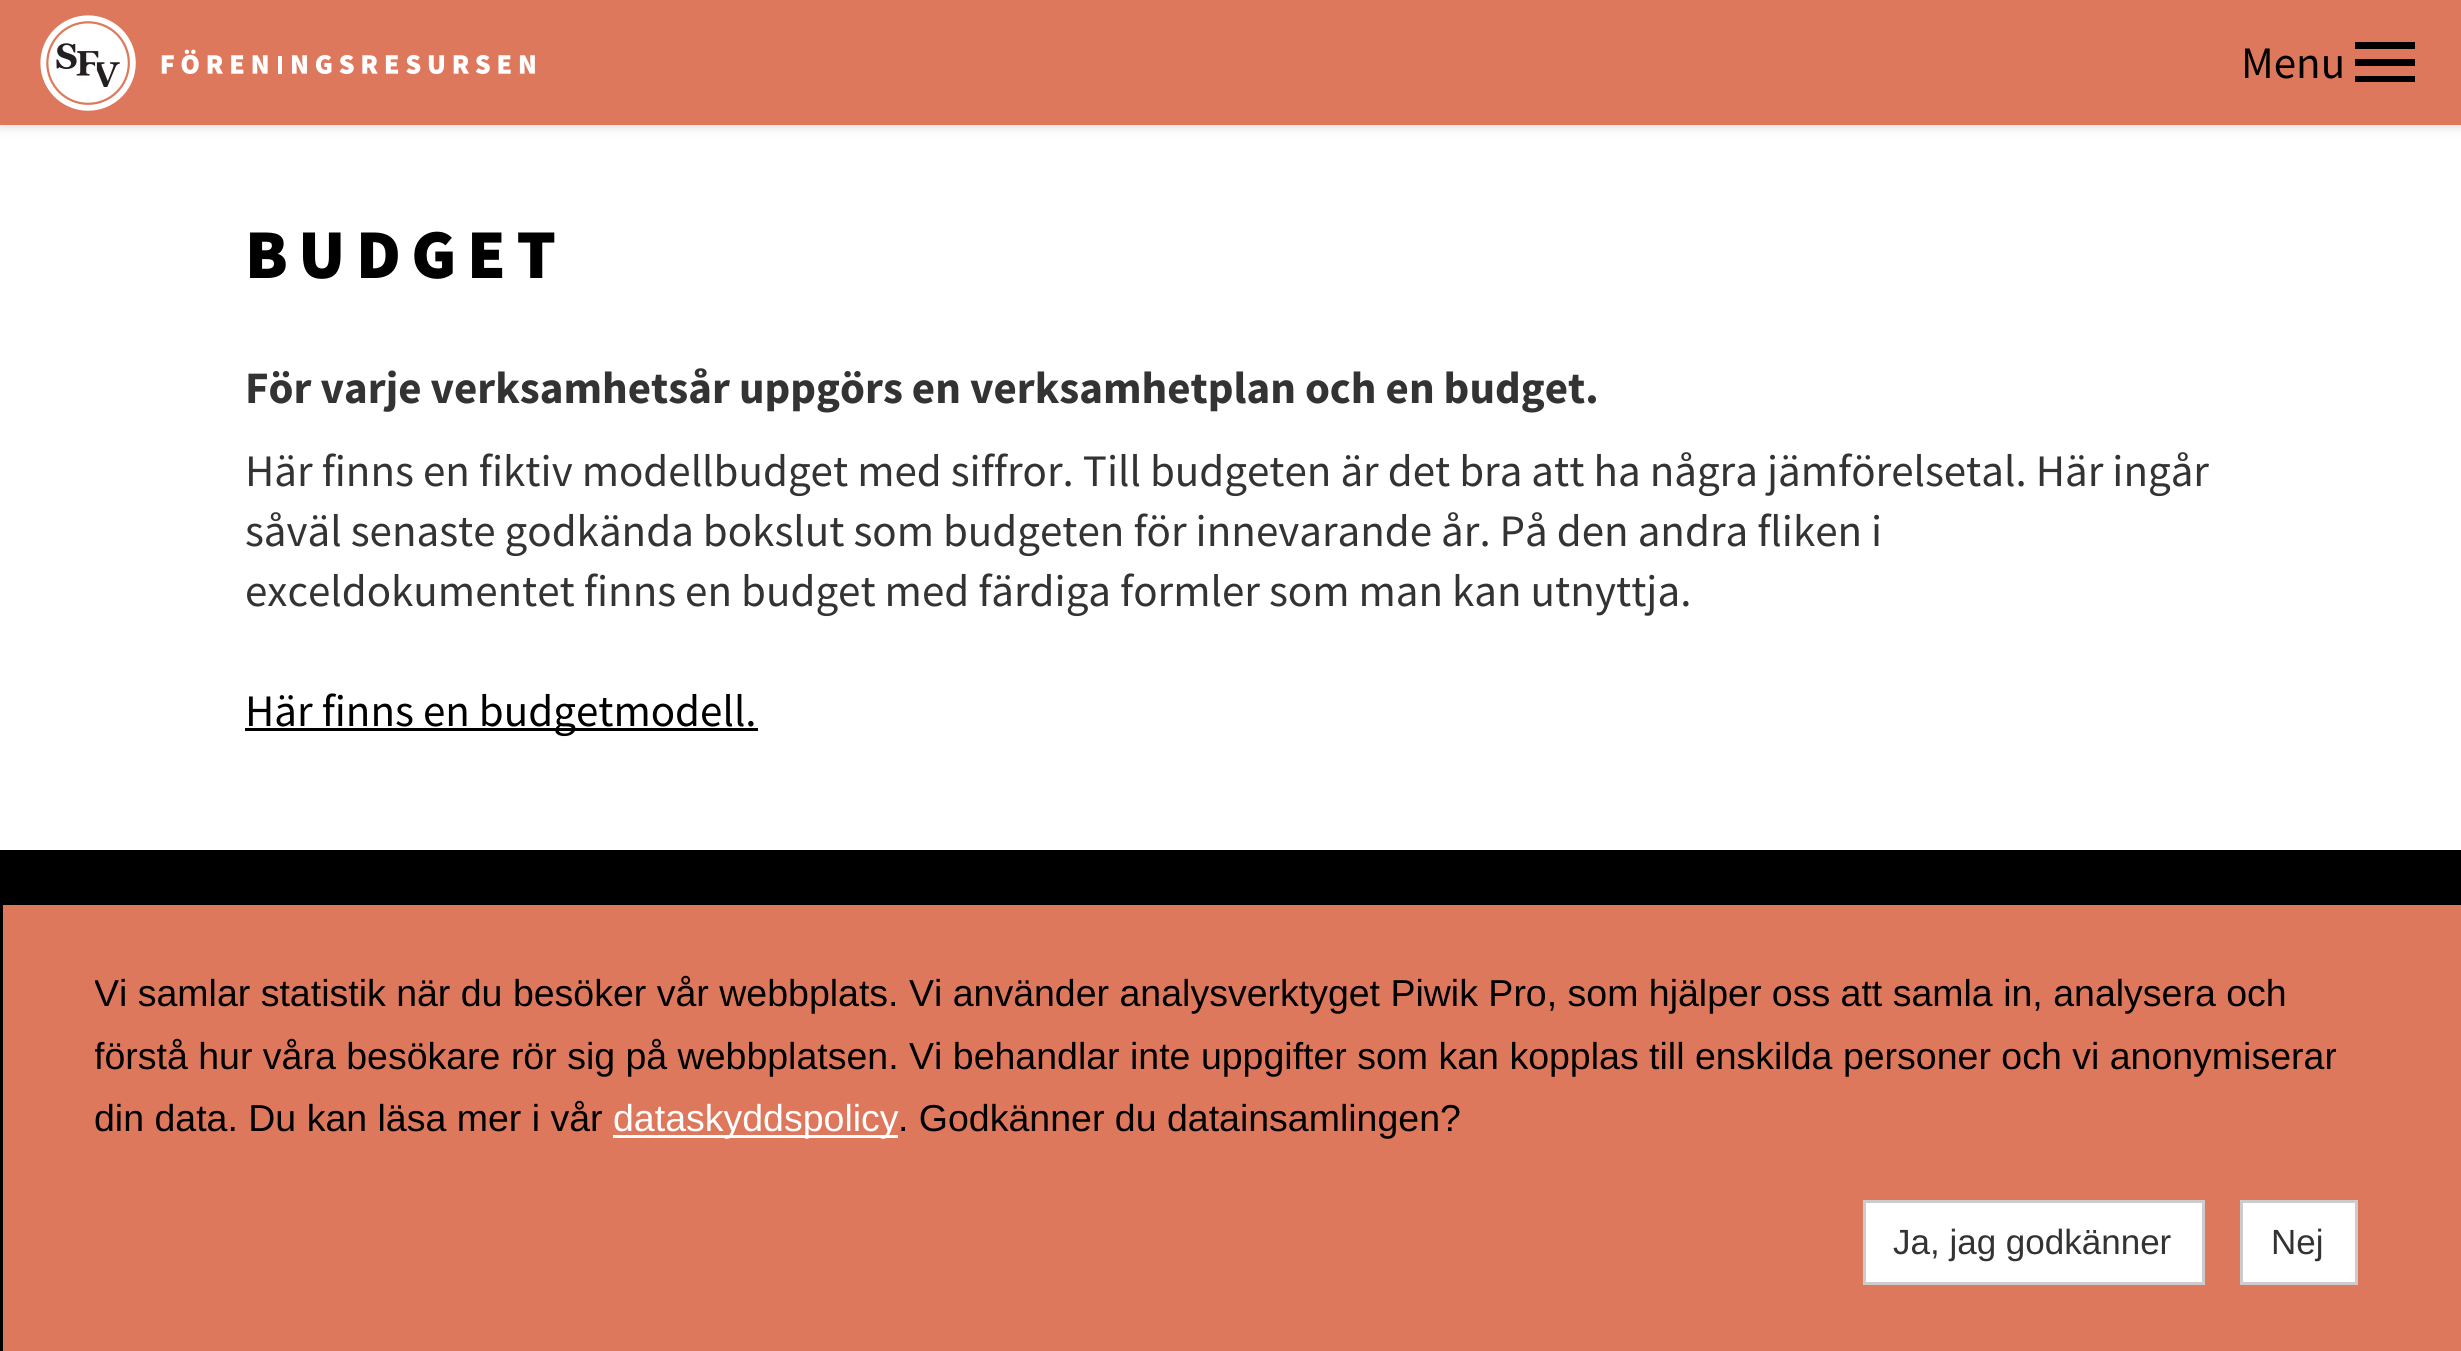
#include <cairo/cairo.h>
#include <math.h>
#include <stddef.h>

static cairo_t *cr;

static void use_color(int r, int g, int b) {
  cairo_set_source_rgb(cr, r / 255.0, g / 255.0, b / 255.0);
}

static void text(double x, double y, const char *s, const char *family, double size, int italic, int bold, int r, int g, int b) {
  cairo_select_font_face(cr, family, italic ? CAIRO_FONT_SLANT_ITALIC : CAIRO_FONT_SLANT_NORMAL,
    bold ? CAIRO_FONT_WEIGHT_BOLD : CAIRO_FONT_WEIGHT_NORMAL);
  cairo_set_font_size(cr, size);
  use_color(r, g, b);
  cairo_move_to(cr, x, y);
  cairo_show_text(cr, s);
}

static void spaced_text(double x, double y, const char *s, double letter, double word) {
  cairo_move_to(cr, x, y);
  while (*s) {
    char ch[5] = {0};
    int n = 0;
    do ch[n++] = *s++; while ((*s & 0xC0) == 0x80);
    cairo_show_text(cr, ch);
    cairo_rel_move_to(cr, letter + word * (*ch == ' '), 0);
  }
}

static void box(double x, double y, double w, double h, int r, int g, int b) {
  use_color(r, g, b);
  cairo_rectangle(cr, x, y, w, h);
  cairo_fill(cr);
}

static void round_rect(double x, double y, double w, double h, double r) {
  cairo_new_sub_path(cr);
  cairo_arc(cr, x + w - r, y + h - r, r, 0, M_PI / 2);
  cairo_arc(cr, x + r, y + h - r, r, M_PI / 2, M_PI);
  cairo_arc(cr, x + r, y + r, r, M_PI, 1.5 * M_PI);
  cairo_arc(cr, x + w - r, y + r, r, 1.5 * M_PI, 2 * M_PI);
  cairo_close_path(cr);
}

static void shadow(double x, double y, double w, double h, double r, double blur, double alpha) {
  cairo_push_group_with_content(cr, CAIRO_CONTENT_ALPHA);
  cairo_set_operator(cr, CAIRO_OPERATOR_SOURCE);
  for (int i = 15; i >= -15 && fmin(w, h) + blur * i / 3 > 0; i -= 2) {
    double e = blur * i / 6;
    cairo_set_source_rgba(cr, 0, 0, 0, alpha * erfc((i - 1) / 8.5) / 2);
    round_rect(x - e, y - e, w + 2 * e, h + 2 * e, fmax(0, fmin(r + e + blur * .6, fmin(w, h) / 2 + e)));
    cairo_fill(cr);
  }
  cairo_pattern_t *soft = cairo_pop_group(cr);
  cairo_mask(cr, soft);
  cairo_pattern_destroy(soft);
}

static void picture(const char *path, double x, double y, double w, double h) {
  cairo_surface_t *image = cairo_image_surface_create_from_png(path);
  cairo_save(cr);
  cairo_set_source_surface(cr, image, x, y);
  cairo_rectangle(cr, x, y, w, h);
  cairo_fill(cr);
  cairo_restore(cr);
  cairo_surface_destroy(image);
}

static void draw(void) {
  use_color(255, 255, 255);
  cairo_paint(cr);
  use_color(0, 0, 0);
  shadow(0, 0, 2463, 125, 0, 6, 0.2);
  box(0, 0, 2461, 125, 222, 120, 92);
  picture("img_01.png", 40, 15, 495, 96);
  use_color(0, 0, 0);
  cairo_new_path(cr);
  cairo_move_to(cr, 2355, 42);
  cairo_line_to(cr, 2415, 42);
  cairo_line_to(cr, 2415, 49);
  cairo_line_to(cr, 2355, 49);
  cairo_close_path(cr);
  cairo_move_to(cr, 2355, 66);
  cairo_line_to(cr, 2355, 59);
  cairo_line_to(cr, 2415, 59);
  cairo_line_to(cr, 2415, 66);
  cairo_close_path(cr);
  cairo_move_to(cr, 2355, 82);
  cairo_line_to(cr, 2355, 76);
  cairo_line_to(cr, 2415, 76);
  cairo_line_to(cr, 2415, 82);
  cairo_close_path(cr);
  cairo_fill(cr);
  box(245, 728, 513, 3, 0, 0, 0);
  box(0, 850, 2461, 501, 0, 0, 0);
  box(3, 905, 2458, 446, 222, 120, 92);
  box(613, 1135, 285, 3, 255, 255, 255);
  cairo_rectangle(cr, 1864.5, 1201.5, 339, 82);
  cairo_fill_preserve(cr);
  use_color(204, 204, 204);
  cairo_set_line_width(cr, 3);
  cairo_stroke(cr);
  use_color(255, 255, 255);
  cairo_rectangle(cr, 2241.5, 1201.5, 115, 82);
  cairo_fill_preserve(cr);
  use_color(204, 204, 204);
  cairo_stroke(cr);
  text(2241, 78, "Menu", "Source Sans Pro", 45, 0, 0, 0, 0, 0);
  cairo_select_font_face(cr, "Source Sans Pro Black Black", CAIRO_FONT_SLANT_NORMAL, CAIRO_FONT_WEIGHT_NORMAL);
  cairo_set_font_size(cr, 70);
  spaced_text(245, 278, "BUDGET", 10.5, 0);
  text(245, 403, "För varje verksamhetsår uppgörs en verksamhetplan och en budget.", "Source Sans Pro", 45, 0, 1, 51, 51, 51);
  text(245, 486, "Här finns en fiktiv modellbudget med siffror. Till budgeten är det bra att ha några jämförelsetal. Här ingår", "Source Sans Pro", 45, 0, 0, 51, 51, 51);
  text(245, 546, "såväl senaste godkända bokslut som budgeten för innevarande år. På den andra fliken i", "Source Sans Pro", 45, 0, 0, 51, 51, 51);
  text(245, 606, "exceldokumentet finns en budget med färdiga formler som man kan utnyttja.", "Source Sans Pro", 45, 0, 0, 51, 51, 51);
  text(245, 726, "Här finns en budgetmodell.", "Source Sans Pro", 45, 0, 0, 0, 0, 0);
  cairo_save(cr);
  cairo_rectangle(cr, 95, 963, 2275, 187);
  cairo_clip(cr);
  text(94, 1006, "Vi samlar statistik när du besöker vår webbplats. Vi använder analysverktyget Piwik Pro, som hjälper oss att samla in, analysera och", "Liberation Sans", 37.5, 0, 0, 0, 0, 0);
  text(94, 1069, "förstå hur våra besökare rör sig på webbplatsen. Vi behandlar inte uppgifter som kan kopplas till enskilda personer och vi anonymiserar", "Liberation Sans", 37.5, 0, 0, 0, 0, 0);
  cairo_restore(cr);
  text(94, 1131, "din data. Du kan läsa mer i vår", "Liberation Sans", 37.5, 0, 0, 0, 0, 0);
  text(613, 1131, "dataskyddspolicy", "Liberation Sans", 37.5, 0, 0, 255, 255, 255);
  text(898, 1131, ". Godkänner du datainsamlingen?", "Liberation Sans", 37.5, 0, 0, 0, 0, 0);
  text(1893, 1254, "Ja, jag godkänner", "Liberation Sans", 35, 0, 0, 51, 51, 51);
  text(2271, 1254, "Nej", "Liberation Sans", 35, 0, 0, 51, 51, 51);
}

int main(void) {
  cairo_surface_t *surface = cairo_image_surface_create(CAIRO_FORMAT_RGB24, 2461, 1351);
  cr = cairo_create(surface);
  cairo_font_options_t *options = cairo_font_options_create();
  cairo_font_options_set_hint_metrics(options, CAIRO_HINT_METRICS_OFF);
  cairo_font_options_set_hint_style(options, CAIRO_HINT_STYLE_NONE);
  cairo_set_font_options(cr, options);
  cairo_set_miter_limit(cr, 4);
  draw();
  cairo_surface_write_to_png(surface, "out.png");
  cairo_font_options_destroy(options);
  cairo_destroy(cr);
  cairo_surface_destroy(surface);
  return 0;
}
